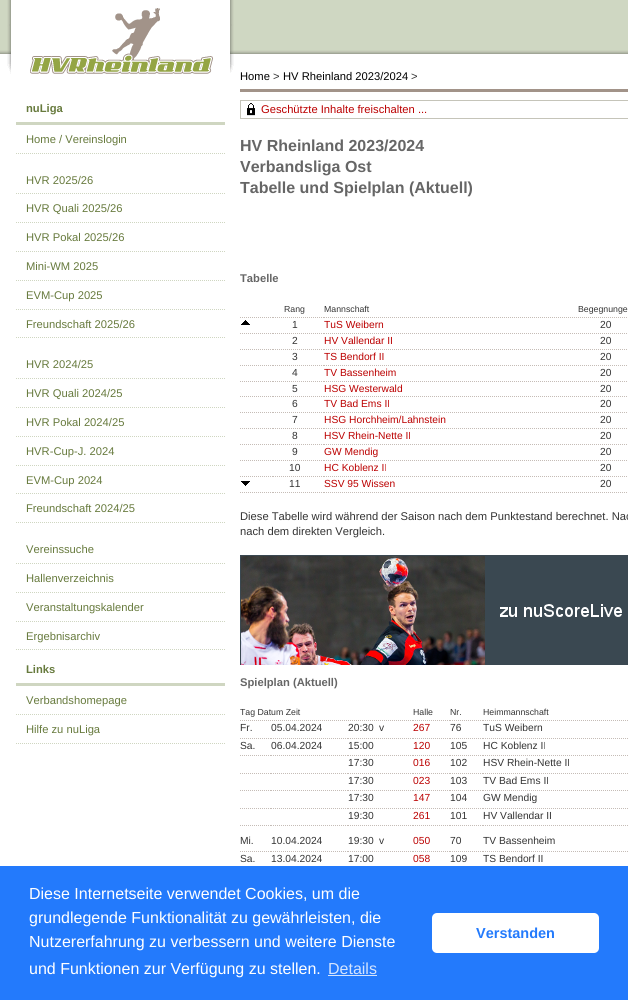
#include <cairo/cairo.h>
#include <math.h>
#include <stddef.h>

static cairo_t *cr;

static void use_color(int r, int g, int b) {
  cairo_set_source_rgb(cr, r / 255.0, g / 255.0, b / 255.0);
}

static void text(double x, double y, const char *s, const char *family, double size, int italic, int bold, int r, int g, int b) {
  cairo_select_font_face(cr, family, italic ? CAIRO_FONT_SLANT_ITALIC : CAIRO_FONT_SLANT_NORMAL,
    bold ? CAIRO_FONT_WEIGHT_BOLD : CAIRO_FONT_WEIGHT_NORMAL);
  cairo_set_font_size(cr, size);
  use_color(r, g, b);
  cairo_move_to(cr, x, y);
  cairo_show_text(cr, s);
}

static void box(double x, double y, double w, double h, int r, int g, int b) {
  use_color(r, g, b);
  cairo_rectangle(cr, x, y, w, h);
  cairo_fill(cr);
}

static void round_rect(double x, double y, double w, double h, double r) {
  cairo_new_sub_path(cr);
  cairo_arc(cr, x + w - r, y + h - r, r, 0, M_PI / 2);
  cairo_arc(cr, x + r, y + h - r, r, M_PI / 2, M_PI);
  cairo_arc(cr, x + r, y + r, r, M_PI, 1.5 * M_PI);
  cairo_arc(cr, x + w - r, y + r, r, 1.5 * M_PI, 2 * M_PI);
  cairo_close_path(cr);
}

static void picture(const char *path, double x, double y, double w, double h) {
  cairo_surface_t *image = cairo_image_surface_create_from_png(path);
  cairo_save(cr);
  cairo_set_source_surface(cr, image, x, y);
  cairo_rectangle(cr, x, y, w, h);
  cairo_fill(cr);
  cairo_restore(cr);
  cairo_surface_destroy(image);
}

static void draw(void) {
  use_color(255, 255, 255);
  cairo_paint(cr);
  picture("img_01.png", 0, 0, 628, 54);
  picture("img_02.png", 7, 0, 227, 74);
  box(16, 122, 209, 3, 207, 214, 193);
  cairo_new_path(cr);
  cairo_move_to(cr, 16, 153.5);
  cairo_line_to(cr, 225, 153.5);
  cairo_set_line_width(cr, 1);
  cairo_set_dash(cr, (double[]){1, 1}, 2, 0);
  cairo_stroke(cr);
  cairo_new_path(cr);
  cairo_move_to(cr, 16, 193.5);
  cairo_line_to(cr, 225, 193.5);
  cairo_stroke(cr);
  cairo_new_path(cr);
  cairo_move_to(cr, 16, 222.5);
  cairo_line_to(cr, 225, 222.5);
  cairo_stroke(cr);
  cairo_new_path(cr);
  cairo_move_to(cr, 16, 251.5);
  cairo_line_to(cr, 225, 251.5);
  cairo_stroke(cr);
  cairo_new_path(cr);
  cairo_move_to(cr, 16, 280.5);
  cairo_line_to(cr, 225, 280.5);
  cairo_stroke(cr);
  cairo_new_path(cr);
  cairo_move_to(cr, 16, 309.5);
  cairo_line_to(cr, 225, 309.5);
  cairo_stroke(cr);
  cairo_new_path(cr);
  cairo_move_to(cr, 16, 337.5);
  cairo_line_to(cr, 225, 337.5);
  cairo_stroke(cr);
  cairo_new_path(cr);
  cairo_move_to(cr, 16, 378.5);
  cairo_line_to(cr, 225, 378.5);
  cairo_stroke(cr);
  cairo_new_path(cr);
  cairo_move_to(cr, 16, 407.5);
  cairo_line_to(cr, 225, 407.5);
  cairo_stroke(cr);
  cairo_new_path(cr);
  cairo_move_to(cr, 16, 436.5);
  cairo_line_to(cr, 225, 436.5);
  cairo_stroke(cr);
  cairo_new_path(cr);
  cairo_move_to(cr, 16, 465.5);
  cairo_line_to(cr, 225, 465.5);
  cairo_stroke(cr);
  cairo_new_path(cr);
  cairo_move_to(cr, 16, 493.5);
  cairo_line_to(cr, 225, 493.5);
  cairo_stroke(cr);
  cairo_new_path(cr);
  cairo_move_to(cr, 16, 522.5);
  cairo_line_to(cr, 225, 522.5);
  cairo_stroke(cr);
  cairo_new_path(cr);
  cairo_move_to(cr, 16, 563.5);
  cairo_line_to(cr, 225, 563.5);
  cairo_stroke(cr);
  cairo_new_path(cr);
  cairo_move_to(cr, 16, 592.5);
  cairo_line_to(cr, 225, 592.5);
  cairo_stroke(cr);
  cairo_new_path(cr);
  cairo_move_to(cr, 16, 621.5);
  cairo_line_to(cr, 225, 621.5);
  cairo_stroke(cr);
  cairo_new_path(cr);
  cairo_move_to(cr, 16, 649.5);
  cairo_line_to(cr, 225, 649.5);
  cairo_stroke(cr);
  box(16, 683, 209, 3, 207, 214, 193);
  cairo_new_path(cr);
  cairo_move_to(cr, 16, 714.5);
  cairo_line_to(cr, 225, 714.5);
  cairo_stroke(cr);
  cairo_new_path(cr);
  cairo_move_to(cr, 16, 743.5);
  cairo_line_to(cr, 225, 743.5);
  cairo_stroke(cr);
  box(240, 89, 388, 3, 162, 147, 137);
  cairo_rectangle(cr, 240.5, 100.5, 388, 18);
  use_color(197, 196, 185);
  cairo_set_dash(cr, NULL, 0, 0);
  cairo_stroke(cr);
  picture("img_03.png", 247, 103, 8, 13);
  cairo_new_path(cr);
  cairo_move_to(cr, 273, 317.5);
  cairo_line_to(cr, 324, 317.5);
  use_color(197, 188, 182);
  cairo_set_dash(cr, (double[]){1, 1}, 2, 0);
  cairo_stroke(cr);
  cairo_new_path(cr);
  cairo_move_to(cr, 324, 317.5);
  cairo_line_to(cr, 554, 317.5);
  cairo_stroke(cr);
  cairo_new_path(cr);
  cairo_move_to(cr, 554, 317.5);
  cairo_line_to(cr, 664, 317.5);
  cairo_stroke(cr);
  cairo_new_path(cr);
  cairo_move_to(cr, 240, 317.5);
  cairo_line_to(cr, 273, 317.5);
  cairo_stroke(cr);
  cairo_new_path(cr);
  cairo_move_to(cr, 240, 333.5);
  cairo_line_to(cr, 273, 333.5);
  cairo_stroke(cr);
  picture("img_04.png", 241, 320, 9, 5);
  cairo_new_path(cr);
  cairo_move_to(cr, 273, 333.5);
  cairo_line_to(cr, 324, 333.5);
  cairo_stroke(cr);
  cairo_new_path(cr);
  cairo_move_to(cr, 324, 333.5);
  cairo_line_to(cr, 554, 333.5);
  cairo_stroke(cr);
  cairo_new_path(cr);
  cairo_move_to(cr, 554, 333.5);
  cairo_line_to(cr, 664, 333.5);
  cairo_stroke(cr);
  cairo_new_path(cr);
  cairo_move_to(cr, 273, 349.5);
  cairo_line_to(cr, 324, 349.5);
  cairo_stroke(cr);
  cairo_new_path(cr);
  cairo_move_to(cr, 324, 349.5);
  cairo_line_to(cr, 554, 349.5);
  cairo_stroke(cr);
  cairo_new_path(cr);
  cairo_move_to(cr, 554, 349.5);
  cairo_line_to(cr, 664, 349.5);
  cairo_stroke(cr);
  cairo_new_path(cr);
  cairo_move_to(cr, 240, 349.5);
  cairo_line_to(cr, 273, 349.5);
  cairo_stroke(cr);
  cairo_new_path(cr);
  cairo_move_to(cr, 273, 365.5);
  cairo_line_to(cr, 324, 365.5);
  cairo_stroke(cr);
  cairo_new_path(cr);
  cairo_move_to(cr, 324, 365.5);
  cairo_line_to(cr, 554, 365.5);
  cairo_stroke(cr);
  cairo_new_path(cr);
  cairo_move_to(cr, 554, 365.5);
  cairo_line_to(cr, 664, 365.5);
  cairo_stroke(cr);
  cairo_new_path(cr);
  cairo_move_to(cr, 240, 365.5);
  cairo_line_to(cr, 273, 365.5);
  cairo_stroke(cr);
  cairo_new_path(cr);
  cairo_move_to(cr, 273, 381.5);
  cairo_line_to(cr, 324, 381.5);
  cairo_stroke(cr);
  cairo_new_path(cr);
  cairo_move_to(cr, 324, 381.5);
  cairo_line_to(cr, 554, 381.5);
  cairo_stroke(cr);
  cairo_new_path(cr);
  cairo_move_to(cr, 554, 381.5);
  cairo_line_to(cr, 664, 381.5);
  cairo_stroke(cr);
  cairo_new_path(cr);
  cairo_move_to(cr, 240, 381.5);
  cairo_line_to(cr, 273, 381.5);
  cairo_stroke(cr);
  cairo_new_path(cr);
  cairo_move_to(cr, 273, 396.5);
  cairo_line_to(cr, 324, 396.5);
  cairo_stroke(cr);
  cairo_new_path(cr);
  cairo_move_to(cr, 324, 396.5);
  cairo_line_to(cr, 554, 396.5);
  cairo_stroke(cr);
  cairo_new_path(cr);
  cairo_move_to(cr, 554, 396.5);
  cairo_line_to(cr, 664, 396.5);
  cairo_stroke(cr);
  cairo_new_path(cr);
  cairo_move_to(cr, 240, 396.5);
  cairo_line_to(cr, 273, 396.5);
  cairo_stroke(cr);
  cairo_new_path(cr);
  cairo_move_to(cr, 273, 412.5);
  cairo_line_to(cr, 324, 412.5);
  cairo_stroke(cr);
  cairo_new_path(cr);
  cairo_move_to(cr, 324, 412.5);
  cairo_line_to(cr, 554, 412.5);
  cairo_stroke(cr);
  cairo_new_path(cr);
  cairo_move_to(cr, 554, 412.5);
  cairo_line_to(cr, 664, 412.5);
  cairo_stroke(cr);
  cairo_new_path(cr);
  cairo_move_to(cr, 240, 412.5);
  cairo_line_to(cr, 273, 412.5);
  cairo_stroke(cr);
  cairo_new_path(cr);
  cairo_move_to(cr, 273, 428.5);
  cairo_line_to(cr, 324, 428.5);
  cairo_stroke(cr);
  cairo_new_path(cr);
  cairo_move_to(cr, 324, 428.5);
  cairo_line_to(cr, 554, 428.5);
  cairo_stroke(cr);
  cairo_new_path(cr);
  cairo_move_to(cr, 554, 428.5);
  cairo_line_to(cr, 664, 428.5);
  cairo_stroke(cr);
  cairo_new_path(cr);
  cairo_move_to(cr, 240, 428.5);
  cairo_line_to(cr, 273, 428.5);
  cairo_stroke(cr);
  cairo_new_path(cr);
  cairo_move_to(cr, 273, 444.5);
  cairo_line_to(cr, 324, 444.5);
  cairo_stroke(cr);
  cairo_new_path(cr);
  cairo_move_to(cr, 324, 444.5);
  cairo_line_to(cr, 554, 444.5);
  cairo_stroke(cr);
  cairo_new_path(cr);
  cairo_move_to(cr, 554, 444.5);
  cairo_line_to(cr, 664, 444.5);
  cairo_stroke(cr);
  cairo_new_path(cr);
  cairo_move_to(cr, 240, 444.5);
  cairo_line_to(cr, 273, 444.5);
  cairo_stroke(cr);
  cairo_new_path(cr);
  cairo_move_to(cr, 273, 460.5);
  cairo_line_to(cr, 324, 460.5);
  cairo_stroke(cr);
  cairo_new_path(cr);
  cairo_move_to(cr, 324, 460.5);
  cairo_line_to(cr, 554, 460.5);
  cairo_stroke(cr);
  cairo_new_path(cr);
  cairo_move_to(cr, 554, 460.5);
  cairo_line_to(cr, 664, 460.5);
  cairo_stroke(cr);
  cairo_new_path(cr);
  cairo_move_to(cr, 240, 460.5);
  cairo_line_to(cr, 273, 460.5);
  cairo_stroke(cr);
  cairo_new_path(cr);
  cairo_move_to(cr, 273, 476.5);
  cairo_line_to(cr, 324, 476.5);
  cairo_stroke(cr);
  cairo_new_path(cr);
  cairo_move_to(cr, 324, 476.5);
  cairo_line_to(cr, 554, 476.5);
  cairo_stroke(cr);
  cairo_new_path(cr);
  cairo_move_to(cr, 554, 476.5);
  cairo_line_to(cr, 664, 476.5);
  cairo_stroke(cr);
  cairo_new_path(cr);
  cairo_move_to(cr, 240, 476.5);
  cairo_line_to(cr, 273, 476.5);
  cairo_stroke(cr);
  cairo_new_path(cr);
  cairo_move_to(cr, 240, 492.5);
  cairo_line_to(cr, 273, 492.5);
  cairo_stroke(cr);
  picture("img_05.png", 241, 481, 9, 5);
  cairo_new_path(cr);
  cairo_move_to(cr, 273, 492.5);
  cairo_line_to(cr, 324, 492.5);
  cairo_stroke(cr);
  cairo_new_path(cr);
  cairo_move_to(cr, 324, 492.5);
  cairo_line_to(cr, 554, 492.5);
  cairo_stroke(cr);
  cairo_new_path(cr);
  cairo_move_to(cr, 554, 492.5);
  cairo_line_to(cr, 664, 492.5);
  cairo_stroke(cr);
  picture("img_06.png", 240, 555, 388, 110);
  cairo_new_path(cr);
  cairo_move_to(cr, 240, 720.5);
  cairo_line_to(cr, 413, 720.5);
  cairo_stroke(cr);
  cairo_new_path(cr);
  cairo_move_to(cr, 413, 720.5);
  cairo_line_to(cr, 450, 720.5);
  cairo_stroke(cr);
  cairo_new_path(cr);
  cairo_move_to(cr, 450, 720.5);
  cairo_line_to(cr, 483, 720.5);
  cairo_stroke(cr);
  cairo_new_path(cr);
  cairo_move_to(cr, 483, 720.5);
  cairo_line_to(cr, 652, 720.5);
  cairo_stroke(cr);
  cairo_new_path(cr);
  cairo_move_to(cr, 240, 738.5);
  cairo_line_to(cr, 271, 738.5);
  cairo_stroke(cr);
  cairo_new_path(cr);
  cairo_move_to(cr, 271, 738.5);
  cairo_line_to(cr, 348, 738.5);
  cairo_stroke(cr);
  cairo_new_path(cr);
  cairo_move_to(cr, 348, 738.5);
  cairo_line_to(cr, 413, 738.5);
  cairo_stroke(cr);
  cairo_new_path(cr);
  cairo_move_to(cr, 413, 738.5);
  cairo_line_to(cr, 450, 738.5);
  cairo_stroke(cr);
  cairo_new_path(cr);
  cairo_move_to(cr, 450, 738.5);
  cairo_line_to(cr, 483, 738.5);
  cairo_stroke(cr);
  cairo_new_path(cr);
  cairo_move_to(cr, 483, 738.5);
  cairo_line_to(cr, 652, 738.5);
  cairo_stroke(cr);
  cairo_new_path(cr);
  cairo_move_to(cr, 240, 755.5);
  cairo_line_to(cr, 271, 755.5);
  cairo_stroke(cr);
  cairo_new_path(cr);
  cairo_move_to(cr, 271, 755.5);
  cairo_line_to(cr, 348, 755.5);
  cairo_stroke(cr);
  cairo_new_path(cr);
  cairo_move_to(cr, 348, 755.5);
  cairo_line_to(cr, 413, 755.5);
  cairo_stroke(cr);
  cairo_new_path(cr);
  cairo_move_to(cr, 413, 755.5);
  cairo_line_to(cr, 450, 755.5);
  cairo_stroke(cr);
  cairo_new_path(cr);
  cairo_move_to(cr, 450, 755.5);
  cairo_line_to(cr, 483, 755.5);
  cairo_stroke(cr);
  cairo_new_path(cr);
  cairo_move_to(cr, 483, 755.5);
  cairo_line_to(cr, 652, 755.5);
  cairo_stroke(cr);
  cairo_new_path(cr);
  cairo_move_to(cr, 348, 773.5);
  cairo_line_to(cr, 413, 773.5);
  cairo_stroke(cr);
  cairo_new_path(cr);
  cairo_move_to(cr, 413, 773.5);
  cairo_line_to(cr, 450, 773.5);
  cairo_stroke(cr);
  cairo_new_path(cr);
  cairo_move_to(cr, 450, 773.5);
  cairo_line_to(cr, 483, 773.5);
  cairo_stroke(cr);
  cairo_new_path(cr);
  cairo_move_to(cr, 483, 773.5);
  cairo_line_to(cr, 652, 773.5);
  cairo_stroke(cr);
  cairo_new_path(cr);
  cairo_move_to(cr, 240, 773.5);
  cairo_line_to(cr, 271, 773.5);
  cairo_stroke(cr);
  cairo_new_path(cr);
  cairo_move_to(cr, 271, 773.5);
  cairo_line_to(cr, 348, 773.5);
  cairo_stroke(cr);
  cairo_new_path(cr);
  cairo_move_to(cr, 348, 790.5);
  cairo_line_to(cr, 413, 790.5);
  cairo_stroke(cr);
  cairo_new_path(cr);
  cairo_move_to(cr, 413, 790.5);
  cairo_line_to(cr, 450, 790.5);
  cairo_stroke(cr);
  cairo_new_path(cr);
  cairo_move_to(cr, 450, 790.5);
  cairo_line_to(cr, 483, 790.5);
  cairo_stroke(cr);
  cairo_new_path(cr);
  cairo_move_to(cr, 483, 790.5);
  cairo_line_to(cr, 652, 790.5);
  cairo_stroke(cr);
  cairo_new_path(cr);
  cairo_move_to(cr, 240, 790.5);
  cairo_line_to(cr, 271, 790.5);
  cairo_stroke(cr);
  cairo_new_path(cr);
  cairo_move_to(cr, 271, 790.5);
  cairo_line_to(cr, 348, 790.5);
  cairo_stroke(cr);
  cairo_new_path(cr);
  cairo_move_to(cr, 348, 808.5);
  cairo_line_to(cr, 413, 808.5);
  cairo_stroke(cr);
  cairo_new_path(cr);
  cairo_move_to(cr, 413, 808.5);
  cairo_line_to(cr, 450, 808.5);
  cairo_stroke(cr);
  cairo_new_path(cr);
  cairo_move_to(cr, 450, 808.5);
  cairo_line_to(cr, 483, 808.5);
  cairo_stroke(cr);
  cairo_new_path(cr);
  cairo_move_to(cr, 483, 808.5);
  cairo_line_to(cr, 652, 808.5);
  cairo_stroke(cr);
  cairo_new_path(cr);
  cairo_move_to(cr, 240, 808.5);
  cairo_line_to(cr, 271, 808.5);
  cairo_stroke(cr);
  cairo_new_path(cr);
  cairo_move_to(cr, 271, 808.5);
  cairo_line_to(cr, 348, 808.5);
  cairo_stroke(cr);
  cairo_new_path(cr);
  cairo_move_to(cr, 348, 825.5);
  cairo_line_to(cr, 413, 825.5);
  cairo_stroke(cr);
  cairo_new_path(cr);
  cairo_move_to(cr, 413, 825.5);
  cairo_line_to(cr, 450, 825.5);
  cairo_stroke(cr);
  cairo_new_path(cr);
  cairo_move_to(cr, 450, 825.5);
  cairo_line_to(cr, 483, 825.5);
  cairo_stroke(cr);
  cairo_new_path(cr);
  cairo_move_to(cr, 483, 825.5);
  cairo_line_to(cr, 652, 825.5);
  cairo_stroke(cr);
  cairo_new_path(cr);
  cairo_move_to(cr, 240, 825.5);
  cairo_line_to(cr, 271, 825.5);
  cairo_stroke(cr);
  cairo_new_path(cr);
  cairo_move_to(cr, 271, 825.5);
  cairo_line_to(cr, 348, 825.5);
  cairo_stroke(cr);
  cairo_new_path(cr);
  cairo_move_to(cr, 240, 851.5);
  cairo_line_to(cr, 271, 851.5);
  cairo_stroke(cr);
  cairo_new_path(cr);
  cairo_move_to(cr, 271, 851.5);
  cairo_line_to(cr, 348, 851.5);
  cairo_stroke(cr);
  cairo_new_path(cr);
  cairo_move_to(cr, 348, 851.5);
  cairo_line_to(cr, 413, 851.5);
  cairo_stroke(cr);
  cairo_new_path(cr);
  cairo_move_to(cr, 413, 851.5);
  cairo_line_to(cr, 450, 851.5);
  cairo_stroke(cr);
  cairo_new_path(cr);
  cairo_move_to(cr, 450, 851.5);
  cairo_line_to(cr, 483, 851.5);
  cairo_stroke(cr);
  cairo_new_path(cr);
  cairo_move_to(cr, 483, 851.5);
  cairo_line_to(cr, 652, 851.5);
  cairo_stroke(cr);
  box(0, 866, 628, 134, 35, 122, 252);
  box(328, 975, 49, 1, 211, 228, 254);
  use_color(255, 255, 255);
  round_rect(432, 913, 167, 40, 5);
  cairo_fill(cr);
  text(240, 80, "Home", "Liberation Sans", 11.2, 0, 0, 0, 0, 0);
  text(273, 80, ">", "Liberation Sans", 11.2, 0, 0, 51, 51, 51);
  text(283, 80, "HV Rheinland 2023/2024", "Liberation Sans", 11.2, 0, 0, 0, 0, 0);
  text(411, 80, ">", "Liberation Sans", 11.2, 0, 0, 51, 51, 51);
  text(26, 112, "nuLiga", "Liberation Sans", 11.2, 0, 1, 103, 122, 61);
  text(26, 143, "Home / Vereinslogin", "Liberation Sans", 11.2, 0, 0, 103, 122, 61);
  text(26, 184, "HVR 2025/26", "Liberation Sans", 11.2, 0, 0, 103, 122, 61);
  text(26, 212, "HVR Quali 2025/26", "Liberation Sans", 11.2, 0, 0, 103, 122, 61);
  text(26, 241, "HVR Pokal 2025/26", "Liberation Sans", 11.2, 0, 0, 103, 122, 61);
  text(26, 270, "Mini-WM 2025", "Liberation Sans", 11.2, 0, 0, 103, 122, 61);
  text(26, 299, "EVM-Cup 2025", "Liberation Sans", 11.2, 0, 0, 103, 122, 61);
  text(26, 328, "Freundschaft 2025/26", "Liberation Sans", 11.2, 0, 0, 103, 122, 61);
  text(26, 368, "HVR 2024/25", "Liberation Sans", 11.2, 0, 0, 103, 122, 61);
  text(26, 397, "HVR Quali 2024/25", "Liberation Sans", 11.2, 0, 0, 103, 122, 61);
  text(26, 426, "HVR Pokal 2024/25", "Liberation Sans", 11.2, 0, 0, 103, 122, 61);
  text(26, 455, "HVR-Cup-J. 2024", "Liberation Sans", 11.2, 0, 0, 103, 122, 61);
  text(26, 484, "EVM-Cup 2024", "Liberation Sans", 11.2, 0, 0, 103, 122, 61);
  text(26, 512, "Freundschaft 2024/25", "Liberation Sans", 11.2, 0, 0, 103, 122, 61);
  text(26, 553, "Vereinssuche", "Liberation Sans", 11.2, 0, 0, 103, 122, 61);
  text(26, 582, "Hallenverzeichnis", "Liberation Sans", 11.2, 0, 0, 103, 122, 61);
  text(26, 611, "Veranstaltungskalender", "Liberation Sans", 11.2, 0, 0, 103, 122, 61);
  text(26, 640, "Ergebnisarchiv", "Liberation Sans", 11.2, 0, 0, 103, 122, 61);
  text(26, 673, "Links", "Liberation Sans", 11.2, 0, 1, 103, 122, 61);
  text(26, 704, "Verbandshomepage", "Liberation Sans", 11.2, 0, 0, 103, 122, 61);
  text(26, 733, "Hilfe zu nuLiga", "Liberation Sans", 11.2, 0, 0, 103, 122, 61);
  text(261, 113, "Geschützte Inhalte freischalten ...", "Liberation Sans", 11.2, 0, 0, 187, 0, 0);
  text(240, 151, "HV Rheinland 2023/2024", "Liberation Sans", 16, 0, 1, 102, 102, 102);
  text(240, 172, "Verbandsliga Ost", "Liberation Sans", 16, 0, 1, 102, 102, 102);
  text(240, 193, "Tabelle und Spielplan (Aktuell)", "Liberation Sans", 16, 0, 1, 102, 102, 102);
  text(240, 282, "Tabelle", "Liberation Sans", 11.2, 0, 1, 102, 102, 102);
  text(284, 312, "Rang", "Liberation Sans", 8.75, 0, 0, 51, 51, 51);
  text(324, 312, "Mannschaft", "Liberation Sans", 8.75, 0, 0, 51, 51, 51);
  text(578, 312, "Begegnunge", "Liberation Sans", 8.75, 0, 0, 51, 51, 51);
  text(292, 328, "1", "Liberation Sans", 10.25, 0, 0, 51, 51, 51);
  text(324, 328, "TuS Weibern", "Liberation Sans", 10.25, 0, 0, 187, 0, 0);
  text(600, 328, "20", "Liberation Sans", 10.25, 0, 0, 51, 51, 51);
  text(292, 344, "2", "Liberation Sans", 10.25, 0, 0, 51, 51, 51);
  text(324, 344, "HV Vallendar II", "Liberation Sans", 10.25, 0, 0, 187, 0, 0);
  text(600, 344, "20", "Liberation Sans", 10.25, 0, 0, 51, 51, 51);
  text(292, 360, "3", "Liberation Sans", 10.25, 0, 0, 51, 51, 51);
  text(324, 360, "TS Bendorf II", "Liberation Sans", 10.25, 0, 0, 187, 0, 0);
  text(600, 360, "20", "Liberation Sans", 10.25, 0, 0, 51, 51, 51);
  text(292, 376, "4", "Liberation Sans", 10.25, 0, 0, 51, 51, 51);
  text(324, 376, "TV Bassenheim", "Liberation Sans", 10.25, 0, 0, 187, 0, 0);
  text(600, 376, "20", "Liberation Sans", 10.25, 0, 0, 51, 51, 51);
  text(292, 392, "5", "Liberation Sans", 10.25, 0, 0, 51, 51, 51);
  text(324, 392, "HSG Westerwald", "Liberation Sans", 10.25, 0, 0, 187, 0, 0);
  text(600, 392, "20", "Liberation Sans", 10.25, 0, 0, 51, 51, 51);
  text(292, 407, "6", "Liberation Sans", 10.25, 0, 0, 51, 51, 51);
  text(324, 407, "TV Bad Ems II", "Liberation Sans", 10.25, 0, 0, 187, 0, 0);
  text(600, 407, "20", "Liberation Sans", 10.25, 0, 0, 51, 51, 51);
  text(292, 423, "7", "Liberation Sans", 10.25, 0, 0, 51, 51, 51);
  text(324, 423, "HSG Horchheim/Lahnstein", "Liberation Sans", 10.25, 0, 0, 187, 0, 0);
  text(600, 423, "20", "Liberation Sans", 10.25, 0, 0, 51, 51, 51);
  text(292, 439, "8", "Liberation Sans", 10.25, 0, 0, 51, 51, 51);
  text(324, 439, "HSV Rhein-Nette II", "Liberation Sans", 10.25, 0, 0, 187, 0, 0);
  text(600, 439, "20", "Liberation Sans", 10.25, 0, 0, 51, 51, 51);
  text(292, 455, "9", "Liberation Sans", 10.25, 0, 0, 51, 51, 51);
  text(324, 455, "GW Mendig", "Liberation Sans", 10.25, 0, 0, 187, 0, 0);
  text(600, 455, "20", "Liberation Sans", 10.25, 0, 0, 51, 51, 51);
  text(289, 471, "10", "Liberation Sans", 10.25, 0, 0, 51, 51, 51);
  text(324, 471, "HC Koblenz II", "Liberation Sans", 10.25, 0, 0, 187, 0, 0);
  text(600, 471, "20", "Liberation Sans", 10.25, 0, 0, 51, 51, 51);
  text(289, 487, "11", "Liberation Sans", 10.25, 0, 0, 51, 51, 51);
  text(324, 487, "SSV 95 Wissen", "Liberation Sans", 10.25, 0, 0, 187, 0, 0);
  text(600, 487, "20", "Liberation Sans", 10.25, 0, 0, 51, 51, 51);
  text(240, 520, "Diese Tabelle wird während der Saison nach dem Punktestand berechnet. Nac", "Liberation Sans", 11.2, 0, 0, 51, 51, 51);
  text(240, 535, "nach dem direkten Vergleich.", "Liberation Sans", 11.2, 0, 0, 51, 51, 51);
  text(240, 686, "Spielplan (Aktuell)", "Liberation Sans", 11.2, 0, 1, 102, 102, 102);
  text(240, 715, "Tag Datum Zeit", "Liberation Sans", 8.75, 0, 0, 51, 51, 51);
  text(413, 715, "Halle", "Liberation Sans", 8.75, 0, 0, 51, 51, 51);
  text(450, 715, "Nr.", "Liberation Sans", 8.75, 0, 0, 51, 51, 51);
  text(483, 715, "Heimmannschaft", "Liberation Sans", 8.75, 0, 0, 51, 51, 51);
  text(240, 731, "Fr.", "Liberation Sans", 10.25, 0, 0, 51, 51, 51);
  text(271, 731, "05.04.2024", "Liberation Sans", 10.25, 0, 0, 51, 51, 51);
  text(348, 731, "20:30", "Liberation Sans", 10.25, 0, 0, 51, 51, 51);
  text(379, 731, "v", "Liberation Sans", 10.25, 0, 0, 51, 51, 51);
  text(413, 731, "267", "Liberation Sans", 10.25, 0, 0, 187, 0, 0);
  text(450, 731, "76", "Liberation Sans", 10.25, 0, 0, 51, 51, 51);
  text(483, 731, "TuS Weibern", "Liberation Sans", 10.25, 0, 0, 51, 51, 51);
  text(240, 749, "Sa.", "Liberation Sans", 10.25, 0, 0, 51, 51, 51);
  text(271, 749, "06.04.2024", "Liberation Sans", 10.25, 0, 0, 51, 51, 51);
  text(348, 749, "15:00", "Liberation Sans", 10.25, 0, 0, 51, 51, 51);
  text(413, 749, "120", "Liberation Sans", 10.25, 0, 0, 187, 0, 0);
  text(450, 749, "105", "Liberation Sans", 10.25, 0, 0, 51, 51, 51);
  text(483, 749, "HC Koblenz II", "Liberation Sans", 10.25, 0, 0, 51, 51, 51);
  text(348, 766, "17:30", "Liberation Sans", 10.25, 0, 0, 51, 51, 51);
  text(413, 766, "016", "Liberation Sans", 10.25, 0, 0, 187, 0, 0);
  text(450, 766, "102", "Liberation Sans", 10.25, 0, 0, 51, 51, 51);
  text(483, 766, "HSV Rhein-Nette II", "Liberation Sans", 10.25, 0, 0, 51, 51, 51);
  text(348, 784, "17:30", "Liberation Sans", 10.25, 0, 0, 51, 51, 51);
  text(413, 784, "023", "Liberation Sans", 10.25, 0, 0, 187, 0, 0);
  text(450, 784, "103", "Liberation Sans", 10.25, 0, 0, 51, 51, 51);
  text(483, 784, "TV Bad Ems II", "Liberation Sans", 10.25, 0, 0, 51, 51, 51);
  text(348, 801, "17:30", "Liberation Sans", 10.25, 0, 0, 51, 51, 51);
  text(413, 801, "147", "Liberation Sans", 10.25, 0, 0, 187, 0, 0);
  text(450, 801, "104", "Liberation Sans", 10.25, 0, 0, 51, 51, 51);
  text(483, 801, "GW Mendig", "Liberation Sans", 10.25, 0, 0, 51, 51, 51);
  text(348, 819, "19:30", "Liberation Sans", 10.25, 0, 0, 51, 51, 51);
  text(413, 819, "261", "Liberation Sans", 10.25, 0, 0, 187, 0, 0);
  text(450, 819, "101", "Liberation Sans", 10.25, 0, 0, 51, 51, 51);
  text(483, 819, "HV Vallendar II", "Liberation Sans", 10.25, 0, 0, 51, 51, 51);
  text(240, 844, "Mi.", "Liberation Sans", 10.25, 0, 0, 51, 51, 51);
  text(271, 844, "10.04.2024", "Liberation Sans", 10.25, 0, 0, 51, 51, 51);
  text(348, 844, "19:30", "Liberation Sans", 10.25, 0, 0, 51, 51, 51);
  text(379, 844, "v", "Liberation Sans", 10.25, 0, 0, 51, 51, 51);
  text(413, 844, "050", "Liberation Sans", 10.25, 0, 0, 187, 0, 0);
  text(450, 844, "70", "Liberation Sans", 10.25, 0, 0, 51, 51, 51);
  text(483, 844, "TV Bassenheim", "Liberation Sans", 10.25, 0, 0, 51, 51, 51);
  text(240, 862, "Sa.", "Liberation Sans", 10.25, 0, 0, 51, 51, 51);
  text(271, 862, "13.04.2024", "Liberation Sans", 10.25, 0, 0, 51, 51, 51);
  text(348, 862, "17:00", "Liberation Sans", 10.25, 0, 0, 51, 51, 51);
  text(413, 862, "058", "Liberation Sans", 10.25, 0, 0, 187, 0, 0);
  text(450, 862, "109", "Liberation Sans", 10.25, 0, 0, 51, 51, 51);
  text(483, 862, "TS Bendorf II", "Liberation Sans", 10.25, 0, 0, 51, 51, 51);
  text(29, 899, "Diese Internetseite verwendet Cookies, um die", "Liberation Sans", 16, 0, 0, 255, 255, 255);
  text(29, 923, "grundlegende Funktionalität zu gewährleisten, die", "Liberation Sans", 16, 0, 0, 255, 255, 255);
  text(29, 947, "Nutzererfahrung zu verbessern und weitere Dienste", "Liberation Sans", 16, 0, 0, 255, 255, 255);
  text(29, 974, "und Funktionen zur Verfügung zu stellen.", "Liberation Sans", 16, 0, 0, 255, 255, 255);
  text(328, 974, "Details", "Liberation Sans", 16, 0, 0, 211, 228, 254);
  text(476, 938, "Verstanden", "Liberation Sans", 14.5, 0, 1, 35, 122, 252);
}

int main(void) {
  cairo_surface_t *surface = cairo_image_surface_create(CAIRO_FORMAT_RGB24, 628, 1000);
  cr = cairo_create(surface);
  cairo_font_options_t *options = cairo_font_options_create();
  cairo_font_options_set_hint_metrics(options, CAIRO_HINT_METRICS_OFF);
  cairo_font_options_set_hint_style(options, CAIRO_HINT_STYLE_NONE);
  cairo_set_font_options(cr, options);
  cairo_set_miter_limit(cr, 4);
  draw();
  cairo_surface_write_to_png(surface, "out.png");
  cairo_font_options_destroy(options);
  cairo_destroy(cr);
  cairo_surface_destroy(surface);
  return 0;
}
